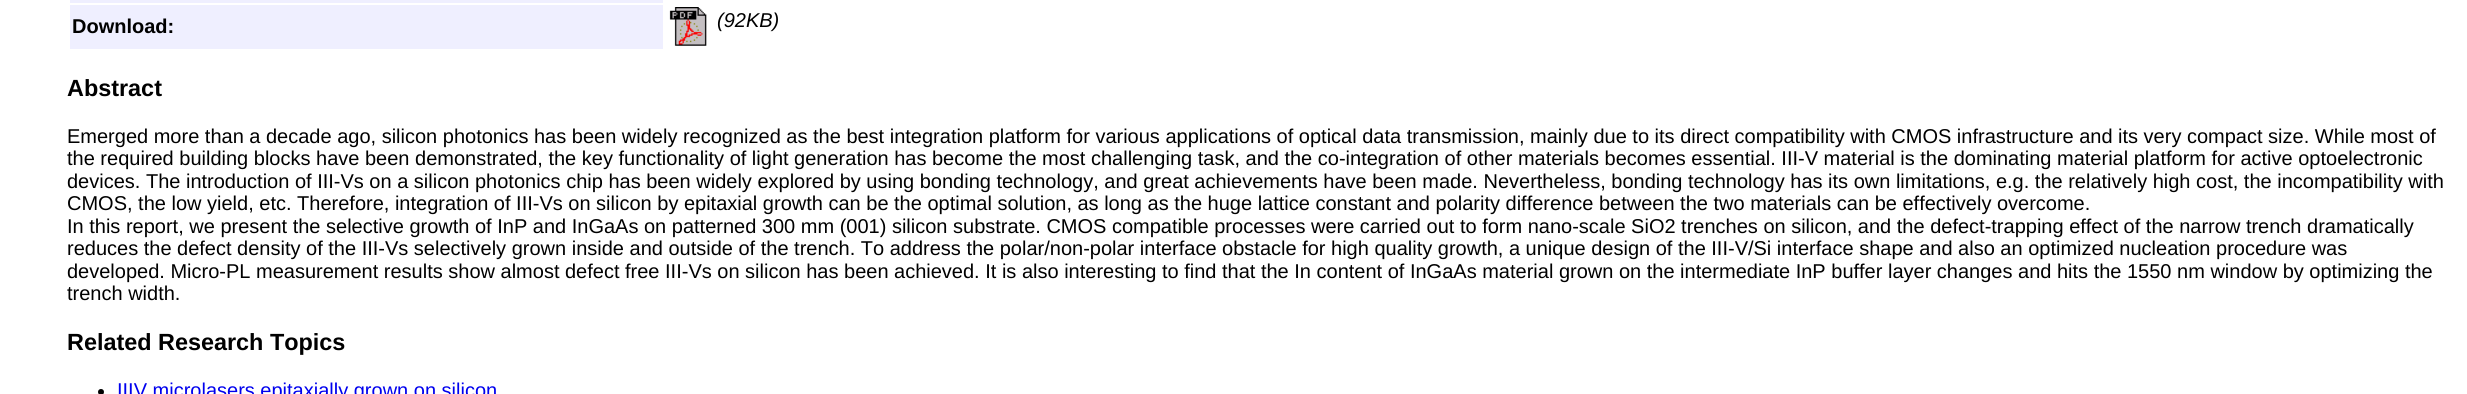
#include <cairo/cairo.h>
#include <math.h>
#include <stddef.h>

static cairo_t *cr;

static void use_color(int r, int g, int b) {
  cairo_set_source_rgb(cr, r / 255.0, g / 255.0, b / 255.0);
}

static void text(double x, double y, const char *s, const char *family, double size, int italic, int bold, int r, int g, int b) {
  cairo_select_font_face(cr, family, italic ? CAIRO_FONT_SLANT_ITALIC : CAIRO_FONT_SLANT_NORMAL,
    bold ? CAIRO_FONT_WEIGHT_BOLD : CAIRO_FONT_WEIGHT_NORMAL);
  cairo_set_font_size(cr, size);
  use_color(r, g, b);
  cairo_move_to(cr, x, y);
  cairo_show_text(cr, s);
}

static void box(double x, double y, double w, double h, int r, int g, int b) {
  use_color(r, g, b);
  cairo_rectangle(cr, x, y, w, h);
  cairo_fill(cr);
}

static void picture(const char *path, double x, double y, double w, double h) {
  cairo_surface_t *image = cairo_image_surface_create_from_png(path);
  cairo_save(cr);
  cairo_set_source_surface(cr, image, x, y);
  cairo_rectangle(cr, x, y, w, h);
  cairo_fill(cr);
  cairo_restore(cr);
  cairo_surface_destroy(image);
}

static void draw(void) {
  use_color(255, 255, 255);
  cairo_paint(cr);
  box(70, 0, 593, 3, 239, 239, 255);
  box(70, 5, 593, 44, 239, 239, 255);
  picture("img_01.png", 669, 7, 38, 39);
  use_color(0, 0, 0);
  cairo_arc(cr, 101, 392, 3, 0, 2 * M_PI);
  cairo_fill(cr);
  text(72, 33, "Download:", "Liberation Sans", 20, 0, 1, 0, 0, 0);
  text(717, 27, "(92KB)", "Liberation Sans", 20, 1, 0, 0, 0, 0);
  text(67, 96, "Abstract", "Liberation Sans", 23.4, 0, 1, 0, 0, 0);
  text(67, 143, "Emerged more than a decade ago, silicon photonics has been widely recognized as the best integration platform for various applications of optical data transmission, mainly due to its direct compatibility with CMOS infrastructure and its very compact size. While most of", "Liberation Sans", 20, 0, 0, 0, 0, 0);
  text(67, 165, "the required building blocks have been demonstrated, the key functionality of light generation has become the most challenging task, and the co-integration of other materials becomes essential. III-V material is the dominating material platform for active optoelectronic", "Liberation Sans", 20, 0, 0, 0, 0, 0);
  text(67, 188, "devices. The introduction of III-Vs on a silicon photonics chip has been widely explored by using bonding technology, and great achievements have been made. Nevertheless, bonding technology has its own limitations, e.g. the relatively high cost, the incompatibility with", "Liberation Sans", 20, 0, 0, 0, 0, 0);
  text(67, 210, "CMOS, the low yield, etc. Therefore, integration of III-Vs on silicon by epitaxial growth can be the optimal solution, as long as the huge lattice constant and polarity difference between the two materials can be effectively overcome.", "Liberation Sans", 20, 0, 0, 0, 0, 0);
  text(67, 233, "In this report, we present the selective growth of InP and InGaAs on patterned 300 mm (001) silicon substrate. CMOS compatible processes were carried out to form nano-scale SiO2 trenches on silicon, and the defect-trapping effect of the narrow trench dramatically", "Liberation Sans", 20, 0, 0, 0, 0, 0);
  text(67, 255, "reduces the defect density of the III-Vs selectively grown inside and outside of the trench. To address the polar/non-polar interface obstacle for high quality growth, a unique design of the III-V/Si interface shape and also an optimized nucleation procedure was", "Liberation Sans", 20, 0, 0, 0, 0, 0);
  text(67, 278, "developed. Micro-PL measurement results show almost defect free III-Vs on silicon has been achieved. It is also interesting to find that the In content of InGaAs material grown on the intermediate InP buffer layer changes and hits the 1550 nm window by optimizing the", "Liberation Sans", 20, 0, 0, 0, 0, 0);
  text(67, 300, "trench width.", "Liberation Sans", 20, 0, 0, 0, 0, 0);
  text(67, 350, "Related Research Topics", "Liberation Sans", 23.4, 0, 1, 0, 0, 0);
  text(117, 397, "IIIV microlasers epitaxially grown on silicon", "Liberation Sans", 20, 0, 0, 0, 0, 238);
}

int main(void) {
  cairo_surface_t *surface = cairo_image_surface_create(CAIRO_FORMAT_RGB24, 2467, 394);
  cr = cairo_create(surface);
  cairo_font_options_t *options = cairo_font_options_create();
  cairo_font_options_set_hint_metrics(options, CAIRO_HINT_METRICS_OFF);
  cairo_font_options_set_hint_style(options, CAIRO_HINT_STYLE_NONE);
  cairo_set_font_options(cr, options);
  cairo_set_miter_limit(cr, 4);
  draw();
  cairo_surface_write_to_png(surface, "out.png");
  cairo_font_options_destroy(options);
  cairo_destroy(cr);
  cairo_surface_destroy(surface);
  return 0;
}
